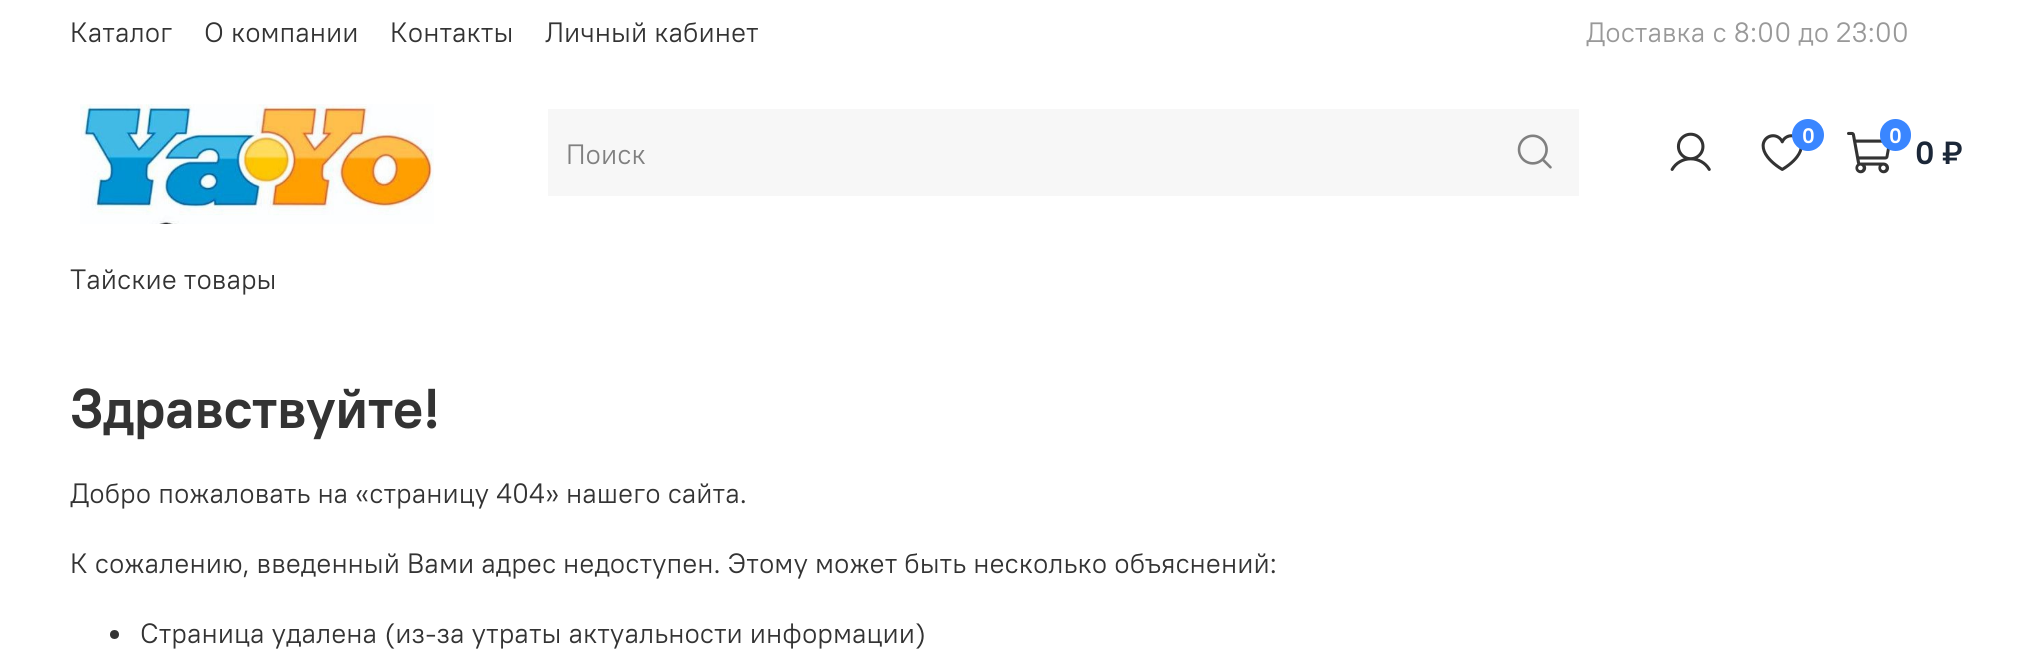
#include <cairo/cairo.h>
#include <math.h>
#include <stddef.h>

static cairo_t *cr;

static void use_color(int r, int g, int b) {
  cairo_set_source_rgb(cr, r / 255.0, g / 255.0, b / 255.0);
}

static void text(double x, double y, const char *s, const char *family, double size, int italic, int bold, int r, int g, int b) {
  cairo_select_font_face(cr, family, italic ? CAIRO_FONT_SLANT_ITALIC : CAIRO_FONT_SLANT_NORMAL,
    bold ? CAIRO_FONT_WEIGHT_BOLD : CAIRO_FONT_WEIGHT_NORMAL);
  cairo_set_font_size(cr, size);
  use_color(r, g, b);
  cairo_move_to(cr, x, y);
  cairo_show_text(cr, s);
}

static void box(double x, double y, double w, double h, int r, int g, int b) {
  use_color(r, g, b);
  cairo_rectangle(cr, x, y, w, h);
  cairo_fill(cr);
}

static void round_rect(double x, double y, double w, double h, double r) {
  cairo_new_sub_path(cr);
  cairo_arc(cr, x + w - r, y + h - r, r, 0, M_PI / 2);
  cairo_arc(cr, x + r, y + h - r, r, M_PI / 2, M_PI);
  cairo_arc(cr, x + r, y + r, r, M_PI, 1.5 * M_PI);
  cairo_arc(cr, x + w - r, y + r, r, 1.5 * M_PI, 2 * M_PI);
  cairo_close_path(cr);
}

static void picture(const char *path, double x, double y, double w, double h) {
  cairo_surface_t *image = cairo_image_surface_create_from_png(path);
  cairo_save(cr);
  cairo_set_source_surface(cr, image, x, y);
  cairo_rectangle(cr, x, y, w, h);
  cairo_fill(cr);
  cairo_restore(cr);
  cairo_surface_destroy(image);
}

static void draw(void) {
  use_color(255, 255, 255);
  cairo_paint(cr);
  picture("img_01.png", 80, 104, 354, 120);
  box(548, 109, 1031, 87, 247, 247, 247);
  picture("img_02.png", 1517, 134, 35, 35);
  picture("img_03.png", 1670, 132, 41, 39);
  picture("img_04.png", 1761, 134, 42, 37);
  use_color(58, 134, 255);
  cairo_arc(cr, 1808, 135, 16, 0, 2 * M_PI);
  cairo_fill(cr);
  picture("img_05.png", 1847, 131, 43, 43);
  round_rect(1880, 119, 31, 32, 15.5);
  cairo_fill(cr);
  use_color(51, 51, 51);
  cairo_arc(cr, 114.5, 634.5, 4.5, 0, 2 * M_PI);
  cairo_fill(cr);
  text(70, 42, "Каталог", "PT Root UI", 28, 0, 0, 51, 51, 51);
  text(204, 42, "О компании", "PT Root UI", 28, 0, 0, 51, 51, 51);
  text(390, 42, "Контакты", "PT Root UI", 28, 0, 0, 51, 51, 51);
  text(545, 42, "Личный кабинет", "PT Root UI", 28, 0, 0, 51, 51, 51);
  text(1586, 42, "Доставка с 8:00 до 23:00", "PT Root UI", 28, 0, 0, 153, 153, 153);
  text(566, 164, "Поиск", "PT Root UI", 28, 0, 0, 128, 128, 128);
  text(1802, 143, "0", "PT Root UI", 21, 0, 1, 255, 255, 255);
  text(1889, 143, "0", "PT Root UI", 21, 0, 1, 255, 255, 255);
  text(1915, 164, "0 ₽", "PT Root UI", 32, 0, 1, 27, 39, 56);
  text(70, 289, "Тайские товары", "PT Root UI", 28, 0, 0, 51, 51, 51);
  text(70, 428, "Здравствуйте!", "PT Root UI", 56, 0, 1, 51, 51, 51);
  text(70, 503, "Добро пожаловать на «страницу 404» нашего сайта.", "PT Root UI", 28, 0, 0, 51, 51, 51);
  text(70, 573, "К сожалению, введенный Вами адрес недоступен. Этому может быть несколько объяснений:", "PT Root UI", 28, 0, 0, 51, 51, 51);
  text(140, 643, "Страница удалена (из-за утраты актуальности информации)", "PT Root UI", 28, 0, 0, 51, 51, 51);
}

int main(void) {
  cairo_surface_t *surface = cairo_image_surface_create(CAIRO_FORMAT_RGB24, 2031, 653);
  cr = cairo_create(surface);
  cairo_font_options_t *options = cairo_font_options_create();
  cairo_font_options_set_hint_metrics(options, CAIRO_HINT_METRICS_OFF);
  cairo_font_options_set_hint_style(options, CAIRO_HINT_STYLE_NONE);
  cairo_set_font_options(cr, options);
  cairo_set_miter_limit(cr, 4);
  draw();
  cairo_surface_write_to_png(surface, "out.png");
  cairo_font_options_destroy(options);
  cairo_destroy(cr);
  cairo_surface_destroy(surface);
  return 0;
}
